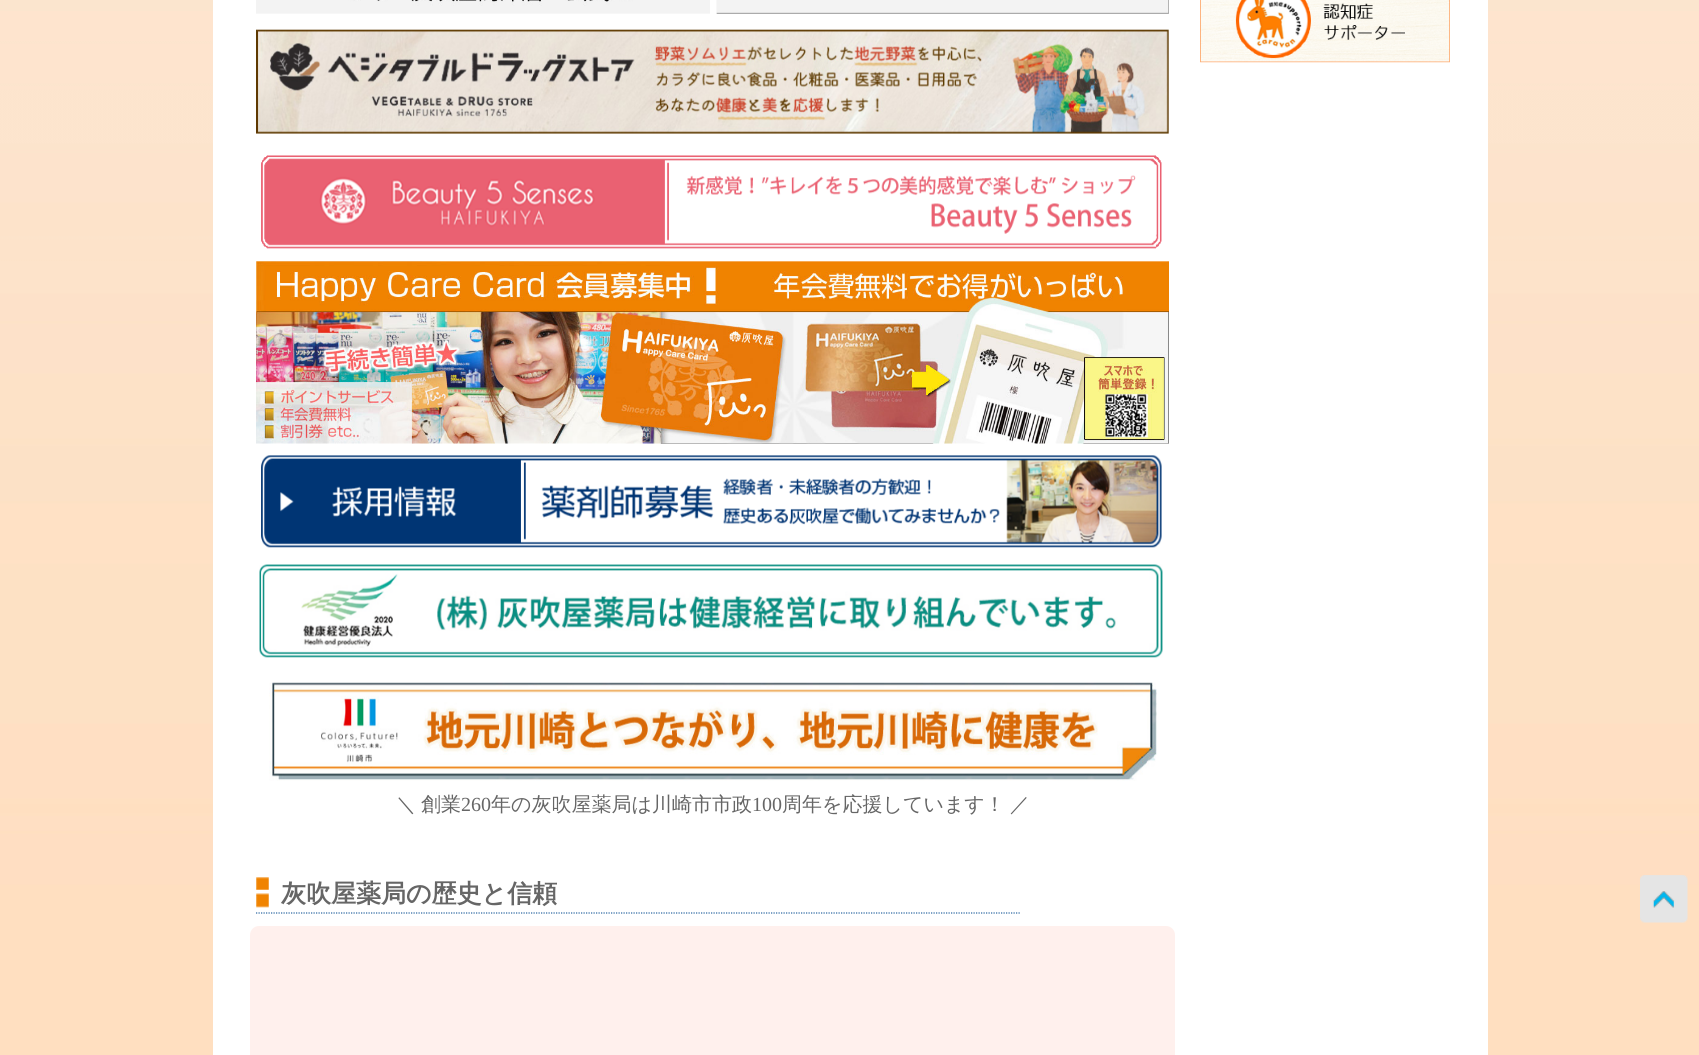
#include <cairo/cairo.h>
#include <math.h>
#include <stddef.h>

static cairo_t *cr;

static void use_color(int r, int g, int b) {
  cairo_set_source_rgb(cr, r / 255.0, g / 255.0, b / 255.0);
}

static void text(double x, double y, const char *s, const char *family, double size, int italic, int bold, int r, int g, int b) {
  cairo_select_font_face(cr, family, italic ? CAIRO_FONT_SLANT_ITALIC : CAIRO_FONT_SLANT_NORMAL,
    bold ? CAIRO_FONT_WEIGHT_BOLD : CAIRO_FONT_WEIGHT_NORMAL);
  cairo_set_font_size(cr, size);
  use_color(r, g, b);
  cairo_move_to(cr, x, y);
  cairo_show_text(cr, s);
}

static void spaced_text(double x, double y, const char *s, double letter, double word) {
  cairo_move_to(cr, x, y);
  while (*s) {
    char ch[5] = {0};
    int n = 0;
    do ch[n++] = *s++; while ((*s & 0xC0) == 0x80);
    cairo_show_text(cr, ch);
    cairo_rel_move_to(cr, letter + word * (*ch == ' '), 0);
  }
}

static void box(double x, double y, double w, double h, int r, int g, int b) {
  use_color(r, g, b);
  cairo_rectangle(cr, x, y, w, h);
  cairo_fill(cr);
}

static void round_rect(double x, double y, double w, double h, double r) {
  cairo_new_sub_path(cr);
  cairo_arc(cr, x + w - r, y + h - r, r, 0, M_PI / 2);
  cairo_arc(cr, x + r, y + h - r, r, M_PI / 2, M_PI);
  cairo_arc(cr, x + r, y + r, r, M_PI, 1.5 * M_PI);
  cairo_arc(cr, x + w - r, y + r, r, 1.5 * M_PI, 2 * M_PI);
  cairo_close_path(cr);
}

static void picture(const char *path, double x, double y, double w, double h) {
  cairo_surface_t *image = cairo_image_surface_create_from_png(path);
  cairo_save(cr);
  cairo_set_source_surface(cr, image, x, y);
  cairo_rectangle(cr, x, y, w, h);
  cairo_fill(cr);
  cairo_restore(cr);
  cairo_surface_destroy(image);
}

static void draw(void) {
  use_color(255, 255, 255);
  cairo_paint(cr);
  picture("img_01.png", 0, 0, 1699, 1055);
  box(213, 0, 1275, 1055, 255, 255, 255);
  picture("img_02.png", 1200, 0, 250, 63);
  picture("img_03.png", 256, 0, 454, 14);
  picture("img_04.png", 716, 0, 453, 14);
  picture("img_05.png", 256, 29, 913, 105);
  picture("img_06.png", 261, 155, 901, 94);
  picture("img_07.png", 256, 261, 913, 183);
  picture("img_08.png", 261, 455, 901, 93);
  picture("img_09.png", 259, 564, 904, 94);
  picture("img_10.png", 269, 682, 888, 99);
  picture("img_11.png", 256, 877, 13, 31);
  cairo_new_path(cr);
  cairo_move_to(cr, 256, 913);
  cairo_line_to(cr, 1021, 913);
  use_color(41, 101, 160);
  cairo_set_line_width(cr, 1.2);
  cairo_set_dash(cr, (double[]){1.25, 1.25}, 2, 0);
  cairo_stroke(cr);
  use_color(255, 240, 237);
  round_rect(250, 926, 925, 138, 9);
  cairo_fill(cr);
  picture("img_12.png", 1640, 875, 48, 48);
  cairo_select_font_face(cr, "WenQuanYi Zen Hei Medium", CAIRO_FONT_SLANT_NORMAL, CAIRO_FONT_WEIGHT_NORMAL);
  cairo_set_font_size(cr, 20);
  use_color(102, 102, 102);
  spaced_text(396, 811, "＼ 創業", 0, -1);
  text(461, 811, "260", "Liberation Serif", 20, 0, 0, 102, 102, 102);
  text(491, 811, "年の灰吹屋薬局は川崎市市政", "WenQuanYi Zen Hei Medium", 20, 0, 0, 102, 102, 102);
  text(752, 811, "100", "Liberation Serif", 20, 0, 0, 102, 102, 102);
  cairo_select_font_face(cr, "WenQuanYi Zen Hei Medium", CAIRO_FONT_SLANT_NORMAL, CAIRO_FONT_WEIGHT_NORMAL);
  spaced_text(782, 811, "周年を応援しています！ ／", 0, -1);
  text(281, 902, "灰吹屋薬局の歴史と信頼", "WenQuanYi Zen Hei", 25, 0, 1, 102, 102, 102);
}

int main(void) {
  cairo_surface_t *surface = cairo_image_surface_create(CAIRO_FORMAT_RGB24, 1699, 1055);
  cr = cairo_create(surface);
  cairo_font_options_t *options = cairo_font_options_create();
  cairo_font_options_set_hint_metrics(options, CAIRO_HINT_METRICS_OFF);
  cairo_font_options_set_hint_style(options, CAIRO_HINT_STYLE_NONE);
  cairo_set_font_options(cr, options);
  cairo_set_miter_limit(cr, 4);
  draw();
  cairo_surface_write_to_png(surface, "out.png");
  cairo_font_options_destroy(options);
  cairo_destroy(cr);
  cairo_surface_destroy(surface);
  return 0;
}
